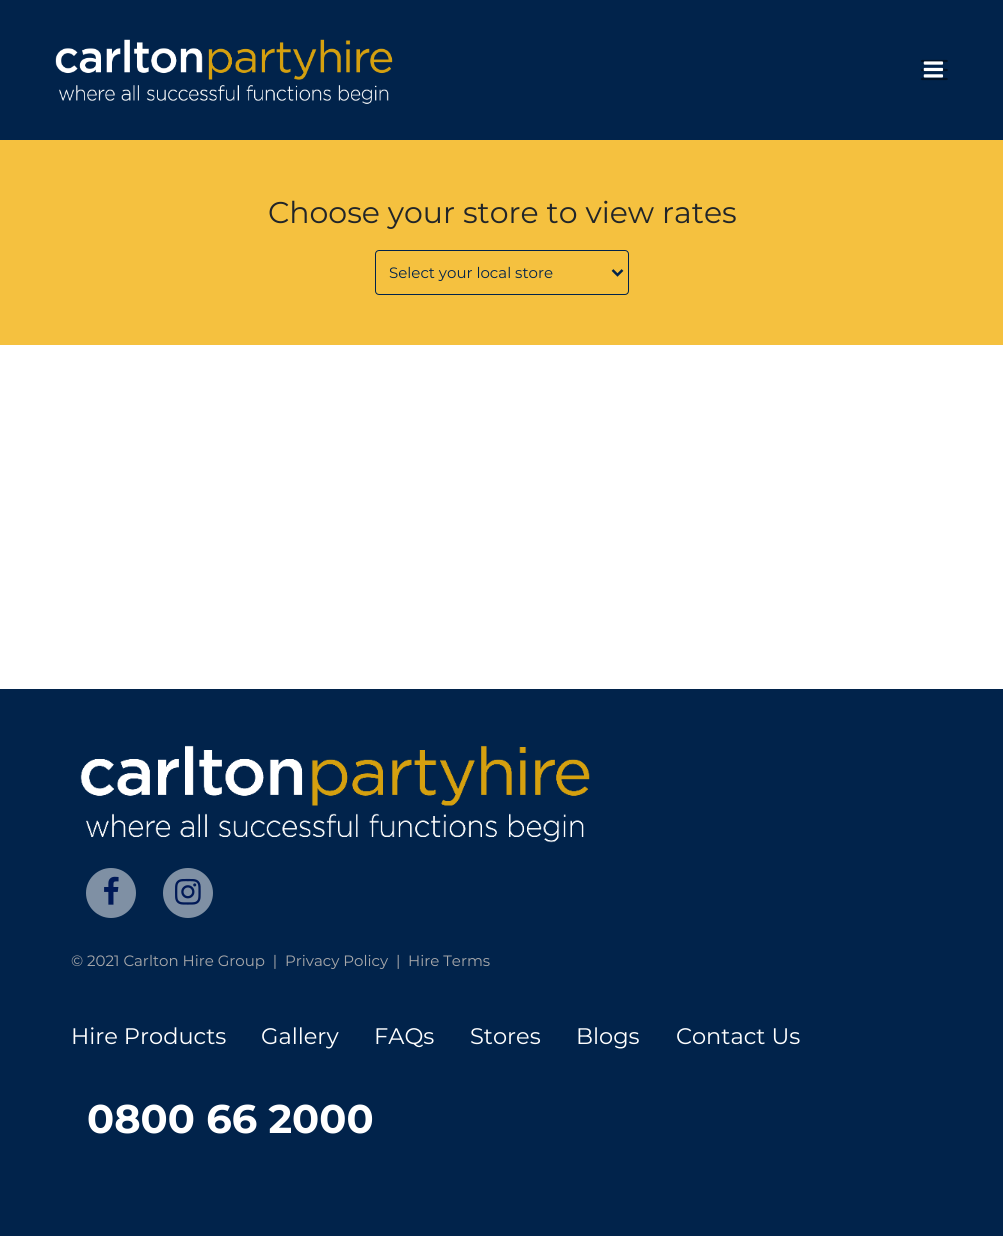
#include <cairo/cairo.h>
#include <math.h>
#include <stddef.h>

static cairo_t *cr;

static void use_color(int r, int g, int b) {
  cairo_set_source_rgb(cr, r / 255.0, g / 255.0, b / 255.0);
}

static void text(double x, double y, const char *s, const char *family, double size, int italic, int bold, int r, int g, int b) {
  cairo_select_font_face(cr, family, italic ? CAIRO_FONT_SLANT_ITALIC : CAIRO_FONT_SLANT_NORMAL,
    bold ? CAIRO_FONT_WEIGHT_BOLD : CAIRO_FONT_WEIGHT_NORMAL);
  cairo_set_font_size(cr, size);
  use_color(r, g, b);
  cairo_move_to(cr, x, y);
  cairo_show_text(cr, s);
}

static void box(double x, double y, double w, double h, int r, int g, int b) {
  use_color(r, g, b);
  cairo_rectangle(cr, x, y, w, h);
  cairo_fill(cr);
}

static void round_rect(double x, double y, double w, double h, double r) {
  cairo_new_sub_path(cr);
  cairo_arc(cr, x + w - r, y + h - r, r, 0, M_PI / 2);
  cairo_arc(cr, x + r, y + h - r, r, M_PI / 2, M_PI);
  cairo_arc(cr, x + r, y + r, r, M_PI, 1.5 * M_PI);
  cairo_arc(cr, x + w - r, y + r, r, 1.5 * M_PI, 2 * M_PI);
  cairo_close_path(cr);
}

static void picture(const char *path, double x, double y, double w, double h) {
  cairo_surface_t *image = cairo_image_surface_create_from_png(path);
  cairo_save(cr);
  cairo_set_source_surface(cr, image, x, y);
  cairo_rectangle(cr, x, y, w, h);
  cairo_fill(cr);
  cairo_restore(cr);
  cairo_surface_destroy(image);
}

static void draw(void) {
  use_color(255, 255, 255);
  cairo_paint(cr);
  box(0, 0, 1003, 140, 1, 35, 75);
  picture("img_01.png", 55, 39, 338, 65);
  picture("img_02.png", 921, 59, 27, 22);
  picture("img_03.png", 923, 61, 21, 17);
  box(0, 140, 1003, 205, 245, 193, 63);
  round_rect(375.5, 250.5, 253, 44, 3.5);
  use_color(1, 35, 75);
  cairo_set_line_width(cr, 1);
  cairo_stroke(cr);
  cairo_new_path(cr);
  cairo_move_to(cr, 612.5, 270);
  cairo_line_to(cr, 617.5, 275);
  cairo_line_to(cr, 622.5, 270);
  cairo_set_line_width(cr, 2.5);
  cairo_stroke(cr);
  box(0, 689, 1003, 547, 1, 35, 75);
  picture("img_04.png", 80, 745, 510, 98);
  use_color(127, 144, 164);
  cairo_arc(cr, 111, 893, 25, 0, 2 * M_PI);
  cairo_fill(cr);
  picture("img_05.png", 104, 876, 15, 29);
  cairo_arc(cr, 188, 893, 25, 0, 2 * M_PI);
  cairo_fill(cr);
  picture("img_06.png", 175, 878, 26, 27);
  text(268, 223, "Choose your store to view rates", "Montserrat", 30, 0, 0, 33, 37, 41);
  text(389, 278, "Select your local store", "Montserrat", 15, 0, 0, 1, 35, 75);
  text(71, 966, "© 2021 Carlton Hire Group  |", "Montserrat", 15, 0, 0, 169, 169, 171);
  text(285, 966, "Privacy Policy", "Montserrat", 15, 0, 0, 169, 169, 171);
  text(396, 966, "|", "Montserrat", 15, 0, 0, 169, 169, 171);
  text(408, 966, "Hire Terms", "Montserrat", 15, 0, 0, 169, 169, 171);
  text(71, 1044, "Hire Products", "Montserrat", 22.5, 0, 0, 255, 255, 255);
  text(261, 1044, "Gallery", "Montserrat", 22.5, 0, 0, 255, 255, 255);
  text(374, 1044, "FAQs", "Montserrat", 22.5, 0, 0, 255, 255, 255);
  text(470, 1044, "Stores", "Montserrat", 22.5, 0, 0, 255, 255, 255);
  text(576, 1044, "Blogs", "Montserrat", 22.5, 0, 0, 255, 255, 255);
  text(676, 1044, "Contact Us", "Montserrat", 22.5, 0, 0, 255, 255, 255);
  text(87, 1133, "0800 66 2000", "Montserrat", 40, 0, 1, 255, 255, 255);
}

int main(void) {
  cairo_surface_t *surface = cairo_image_surface_create(CAIRO_FORMAT_RGB24, 1003, 1236);
  cr = cairo_create(surface);
  cairo_font_options_t *options = cairo_font_options_create();
  cairo_font_options_set_hint_metrics(options, CAIRO_HINT_METRICS_OFF);
  cairo_font_options_set_hint_style(options, CAIRO_HINT_STYLE_NONE);
  cairo_set_font_options(cr, options);
  cairo_set_miter_limit(cr, 4);
  draw();
  cairo_surface_write_to_png(surface, "out.png");
  cairo_font_options_destroy(options);
  cairo_destroy(cr);
  cairo_surface_destroy(surface);
  return 0;
}
